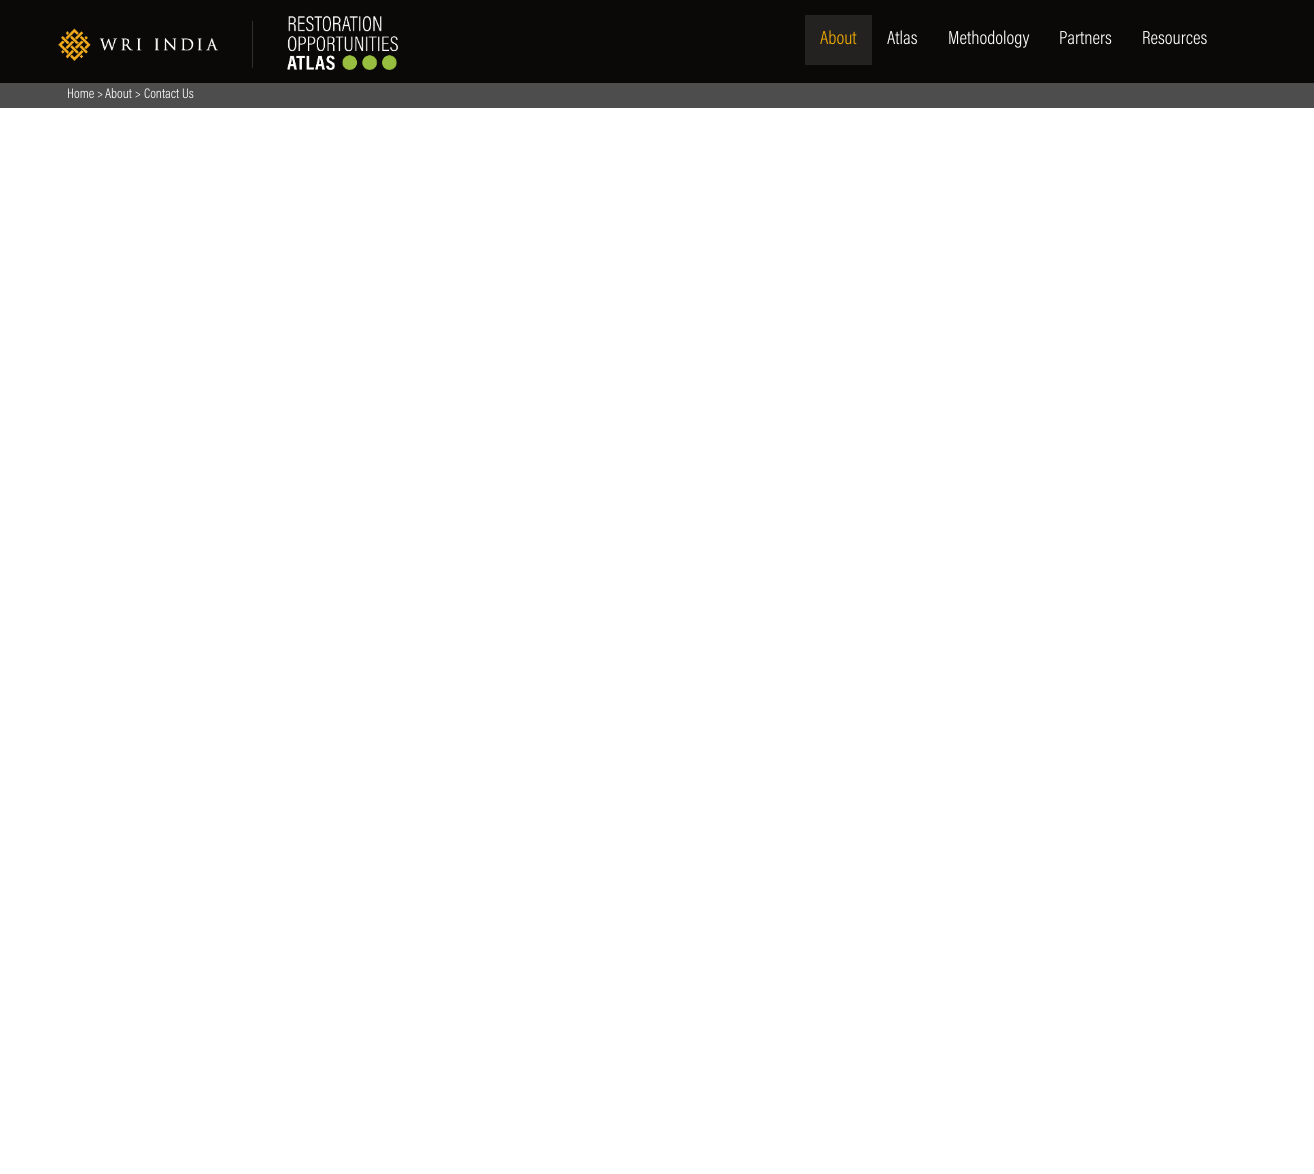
#include <cairo/cairo.h>
#include <math.h>
#include <stddef.h>

static cairo_t *cr;

static void use_color(int r, int g, int b) {
  cairo_set_source_rgb(cr, r / 255.0, g / 255.0, b / 255.0);
}

static void text(double x, double y, const char *s, const char *family, double size, int italic, int bold, int r, int g, int b) {
  cairo_select_font_face(cr, family, italic ? CAIRO_FONT_SLANT_ITALIC : CAIRO_FONT_SLANT_NORMAL,
    bold ? CAIRO_FONT_WEIGHT_BOLD : CAIRO_FONT_WEIGHT_NORMAL);
  cairo_set_font_size(cr, size);
  use_color(r, g, b);
  cairo_move_to(cr, x, y);
  cairo_show_text(cr, s);
}

static void box(double x, double y, double w, double h, int r, int g, int b) {
  use_color(r, g, b);
  cairo_rectangle(cr, x, y, w, h);
  cairo_fill(cr);
}

static void picture(const char *path, double x, double y, double w, double h) {
  cairo_surface_t *image = cairo_image_surface_create_from_png(path);
  cairo_save(cr);
  cairo_set_source_surface(cr, image, x, y);
  cairo_rectangle(cr, x, y, w, h);
  cairo_fill(cr);
  cairo_restore(cr);
  cairo_surface_destroy(image);
}

static void draw(void) {
  use_color(255, 255, 255);
  cairo_paint(cr);
  box(0, 0, 1314, 83, 11, 9, 8);
  picture("img_01.png", 58, 15, 341, 55);
  box(805, 15, 67, 50, 35, 34, 33);
  box(0, 83, 1314, 25, 77, 77, 77);
  text(820, 44, "About", "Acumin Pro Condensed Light", 19, 0, 0, 240, 171, 0);
  text(887, 44, "Atlas", "Acumin Pro Condensed Light", 19, 0, 0, 255, 255, 255);
  text(948, 44, "Methodology", "Acumin Pro Condensed Light", 19, 0, 0, 255, 255, 255);
  text(1059, 44, "Partners", "Acumin Pro Condensed Light", 19, 0, 0, 255, 255, 255);
  text(1142, 44, "Resources", "Acumin Pro Condensed Light", 19, 0, 0, 255, 255, 255);
  text(67, 98, "Home >", "Acumin Pro Condensed Light", 14, 0, 0, 255, 255, 255);
  text(105, 98, "About >", "Acumin Pro Condensed Light", 14, 0, 0, 255, 255, 255);
  text(144, 98, "Contact Us", "Acumin Pro Condensed Light", 14, 0, 0, 255, 255, 255);
}

int main(void) {
  cairo_surface_t *surface = cairo_image_surface_create(CAIRO_FORMAT_RGB24, 1314, 1174);
  cr = cairo_create(surface);
  cairo_font_options_t *options = cairo_font_options_create();
  cairo_font_options_set_hint_metrics(options, CAIRO_HINT_METRICS_OFF);
  cairo_font_options_set_hint_style(options, CAIRO_HINT_STYLE_NONE);
  cairo_set_font_options(cr, options);
  cairo_set_miter_limit(cr, 4);
  draw();
  cairo_surface_write_to_png(surface, "out.png");
  cairo_font_options_destroy(options);
  cairo_destroy(cr);
  cairo_surface_destroy(surface);
  return 0;
}
